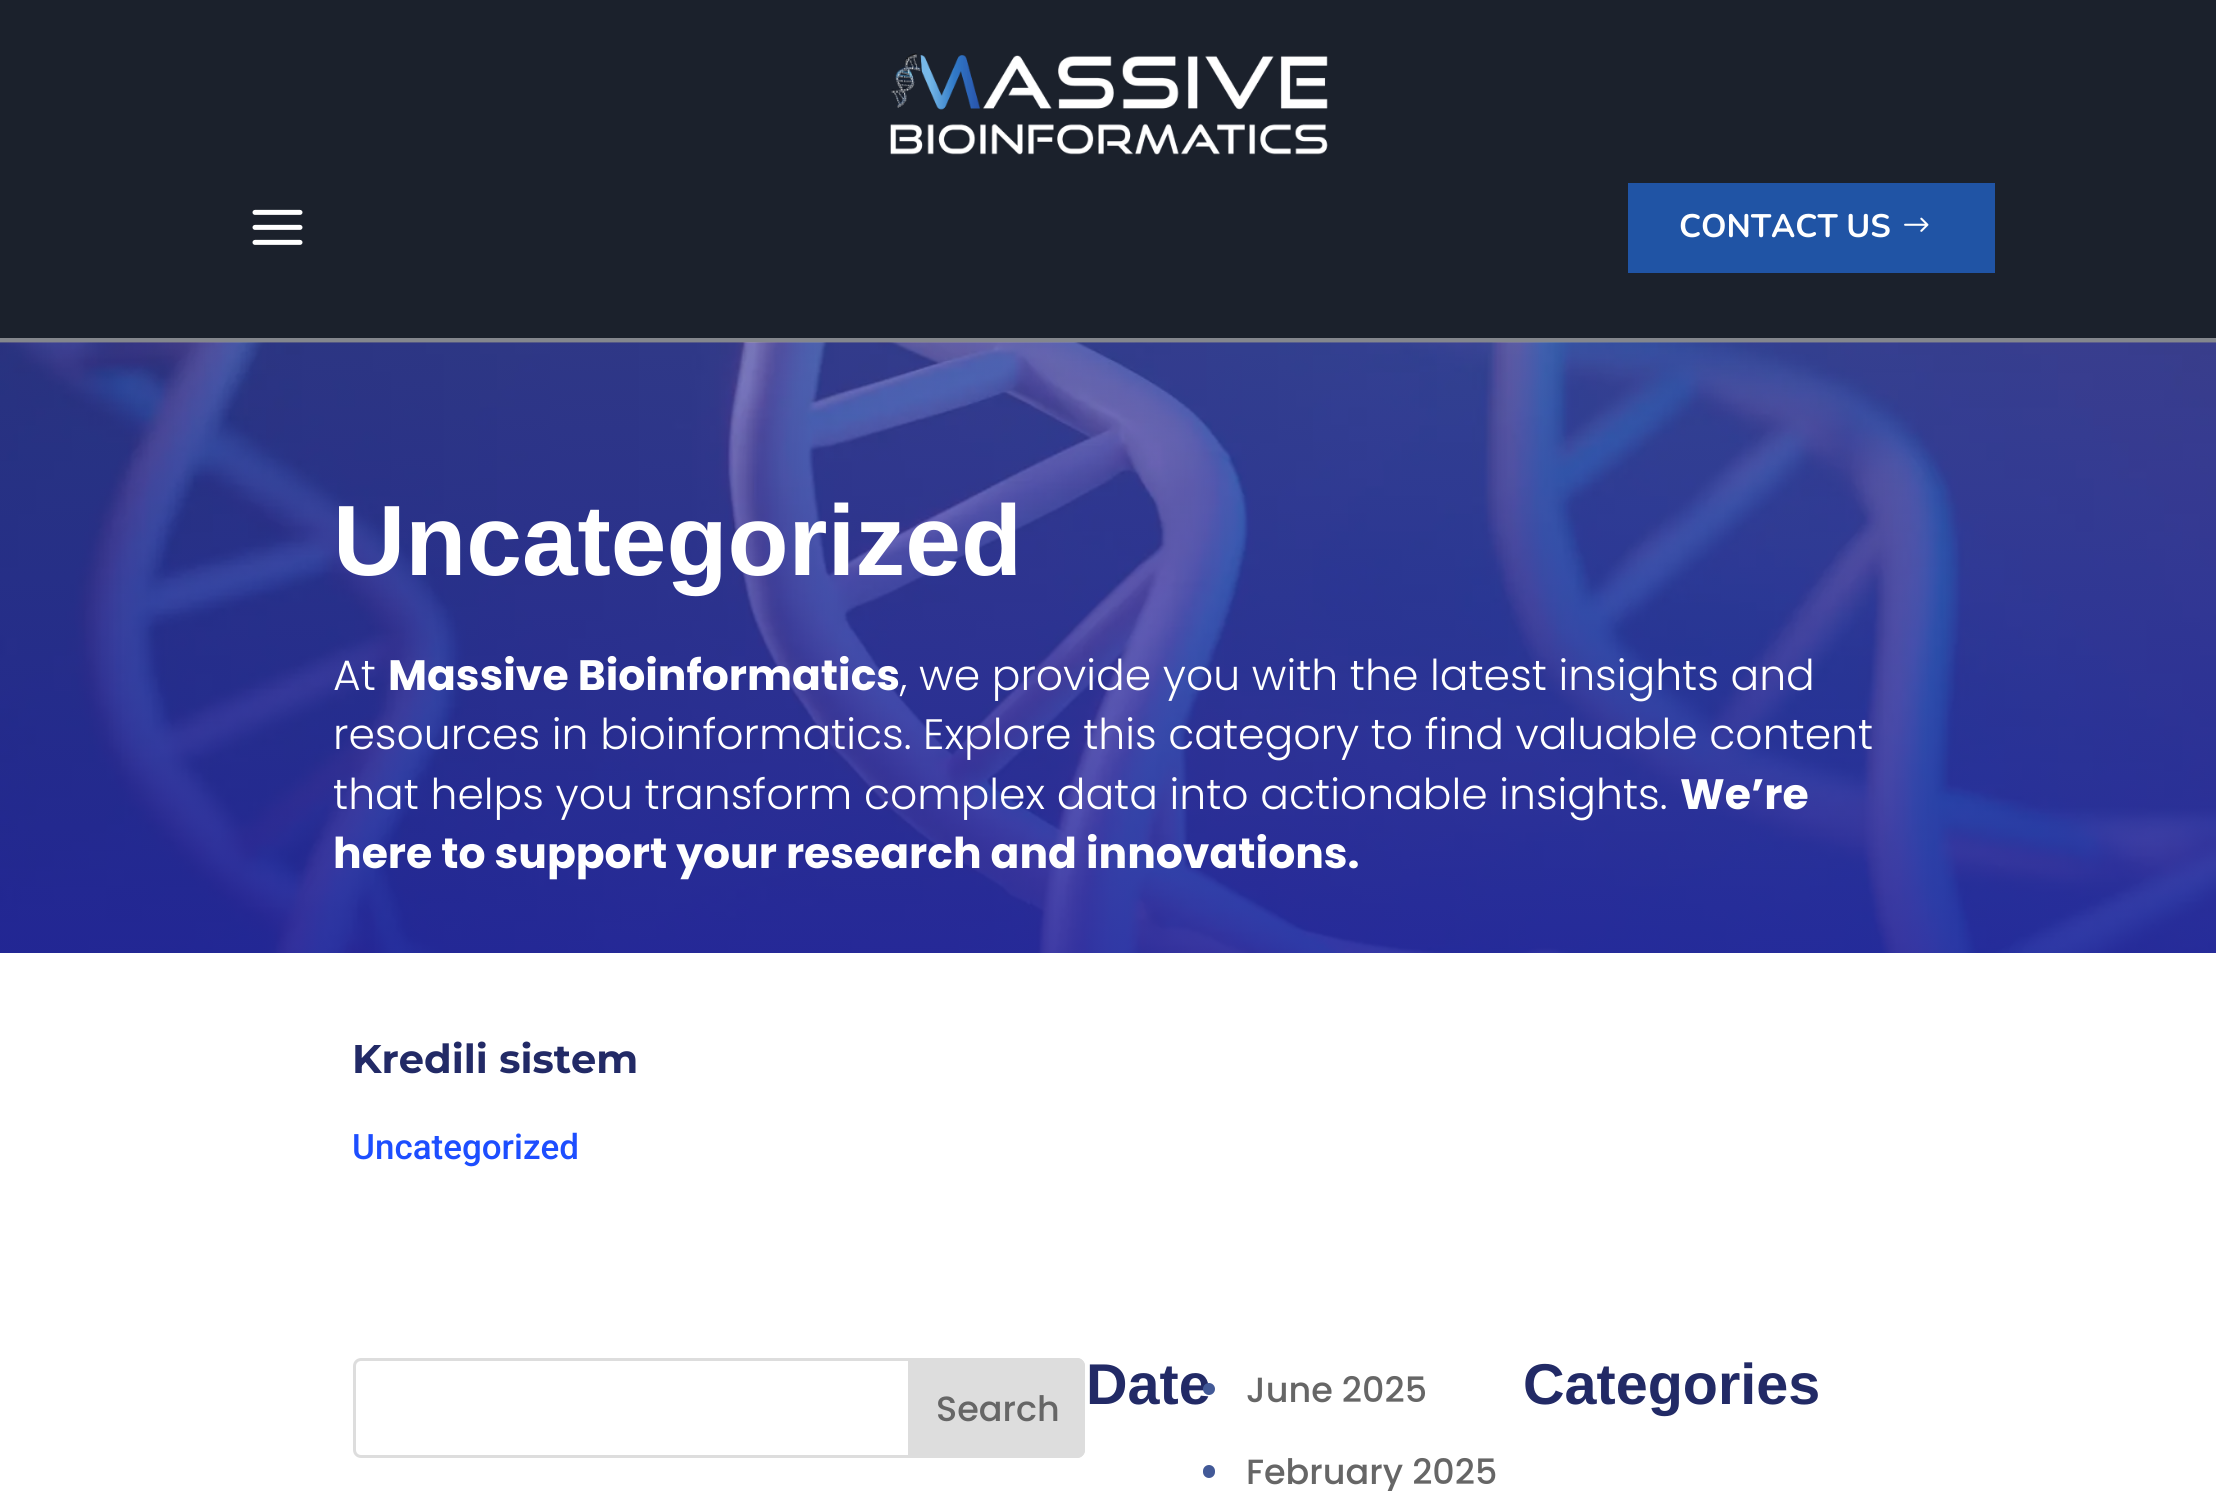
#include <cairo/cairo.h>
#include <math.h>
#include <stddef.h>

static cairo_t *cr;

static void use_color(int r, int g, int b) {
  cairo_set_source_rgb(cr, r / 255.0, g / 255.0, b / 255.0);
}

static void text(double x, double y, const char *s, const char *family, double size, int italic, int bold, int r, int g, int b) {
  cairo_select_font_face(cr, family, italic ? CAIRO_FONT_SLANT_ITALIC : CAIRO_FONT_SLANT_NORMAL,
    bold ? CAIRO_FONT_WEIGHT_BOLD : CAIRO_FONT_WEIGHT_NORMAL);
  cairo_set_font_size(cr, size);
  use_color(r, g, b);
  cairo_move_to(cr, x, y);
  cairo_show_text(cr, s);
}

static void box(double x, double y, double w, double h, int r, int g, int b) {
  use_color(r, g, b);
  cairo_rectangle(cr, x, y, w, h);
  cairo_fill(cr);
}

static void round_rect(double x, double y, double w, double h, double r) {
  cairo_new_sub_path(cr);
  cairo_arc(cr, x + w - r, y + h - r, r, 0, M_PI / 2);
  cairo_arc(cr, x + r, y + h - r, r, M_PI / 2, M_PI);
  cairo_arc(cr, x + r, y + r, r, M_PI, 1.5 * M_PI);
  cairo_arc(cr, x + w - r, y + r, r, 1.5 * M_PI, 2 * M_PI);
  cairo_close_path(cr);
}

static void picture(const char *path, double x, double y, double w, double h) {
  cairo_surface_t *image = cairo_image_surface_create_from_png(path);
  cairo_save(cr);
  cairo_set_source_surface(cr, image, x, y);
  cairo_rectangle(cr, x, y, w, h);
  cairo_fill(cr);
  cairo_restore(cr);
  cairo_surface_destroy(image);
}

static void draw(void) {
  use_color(27, 33, 44);
  cairo_paint(cr);
  box(0, 338, 2216, 5, 132, 135, 141);
  picture("img_01.png", 890, 53, 438, 102);
  picture("img_02.png", 252, 209, 51, 36);
  box(1628, 183, 367, 90, 32, 84, 165);
  picture("img_03.png", 1904, 217, 25, 15);
  picture("img_04.png", 0, 342, 2216, 611);
  box(0, 953, 2216, 538, 255, 255, 255);
  round_rect(354.5, 1359.5, 729, 97, 6.5);
  use_color(221, 221, 221);
  cairo_set_line_width(cr, 3);
  cairo_stroke(cr);
  cairo_new_path(cr);
  cairo_move_to(cr, 909.5, 1359.5);
  cairo_line_to(cr, 1077, 1359.5);
  cairo_curve_to(cr, 1080.5, 1359.5, 1083.5, 1362.5, 1083.5, 1366);
  cairo_line_to(cr, 1083.5, 1450);
  cairo_curve_to(cr, 1083.5, 1453.5, 1080.5, 1456.5, 1077, 1456.5);
  cairo_line_to(cr, 909.5, 1456.5);
  cairo_close_path(cr);
  cairo_fill_preserve(cr);
  cairo_stroke(cr);
  use_color(66, 89, 151);
  round_rect(1203, 1465, 12, 13, 6);
  cairo_fill(cr);
  text(1679, 237, "CONTACT US", "Nunito", 32.5, 0, 1, 255, 255, 255);
  text(333, 575, "Uncategorized", "Liberation Sans", 100, 0, 1, 255, 255, 255);
  text(333, 690, "At", "Poppins Light", 42.5, 0, 0, 255, 255, 255);
  text(388, 690, "Massive Bioinformatics", "Poppins", 42.5, 0, 1, 255, 255, 255);
  text(900, 690, ", we provide you with the latest insights and", "Poppins Light", 42.5, 0, 0, 255, 255, 255);
  text(333, 749, "resources in bioinformatics. Explore this category to find valuable content", "Poppins Light", 42.5, 0, 0, 255, 255, 255);
  text(333, 809, "that helps you transform complex data into actionable insights.", "Poppins Light", 42.5, 0, 0, 255, 255, 255);
  text(1680, 809, "We’re", "Poppins", 42.5, 0, 1, 255, 255, 255);
  text(333, 868, "here to support your research and innovations.", "Poppins", 42.5, 0, 1, 255, 255, 255);
  text(352, 1073, "Kredili sistem", "Montserrat", 40, 0, 1, 34, 42, 102);
  text(352, 1159, "Uncategorized", "Roboto Medium", 35, 0, 0, 29, 78, 255);
  text(936, 1421, "Search", "Poppins Medium", 35, 0, 0, 102, 102, 102);
  text(1086, 1404, "Date", "Liberation Sans", 57.5, 0, 1, 34, 42, 102);
  use_color(66, 89, 151);
  cairo_new_path(cr);
  cairo_arc(cr, 1209, 1389, 6, 0, 2 * M_PI);
  cairo_fill(cr);
  text(1246, 1402, "June 2025", "Poppins Medium", 35, 0, 0, 102, 102, 102);
  text(1246, 1484, "February 2025", "Poppins Medium", 35, 0, 0, 102, 102, 102);
  text(1523, 1404, "Categories", "Liberation Sans", 57.5, 0, 1, 34, 42, 102);
}

int main(void) {
  cairo_surface_t *surface = cairo_image_surface_create(CAIRO_FORMAT_RGB24, 2216, 1491);
  cr = cairo_create(surface);
  cairo_font_options_t *options = cairo_font_options_create();
  cairo_font_options_set_hint_metrics(options, CAIRO_HINT_METRICS_OFF);
  cairo_font_options_set_hint_style(options, CAIRO_HINT_STYLE_NONE);
  cairo_set_font_options(cr, options);
  cairo_set_miter_limit(cr, 4);
  draw();
  cairo_surface_write_to_png(surface, "out.png");
  cairo_font_options_destroy(options);
  cairo_destroy(cr);
  cairo_surface_destroy(surface);
  return 0;
}
